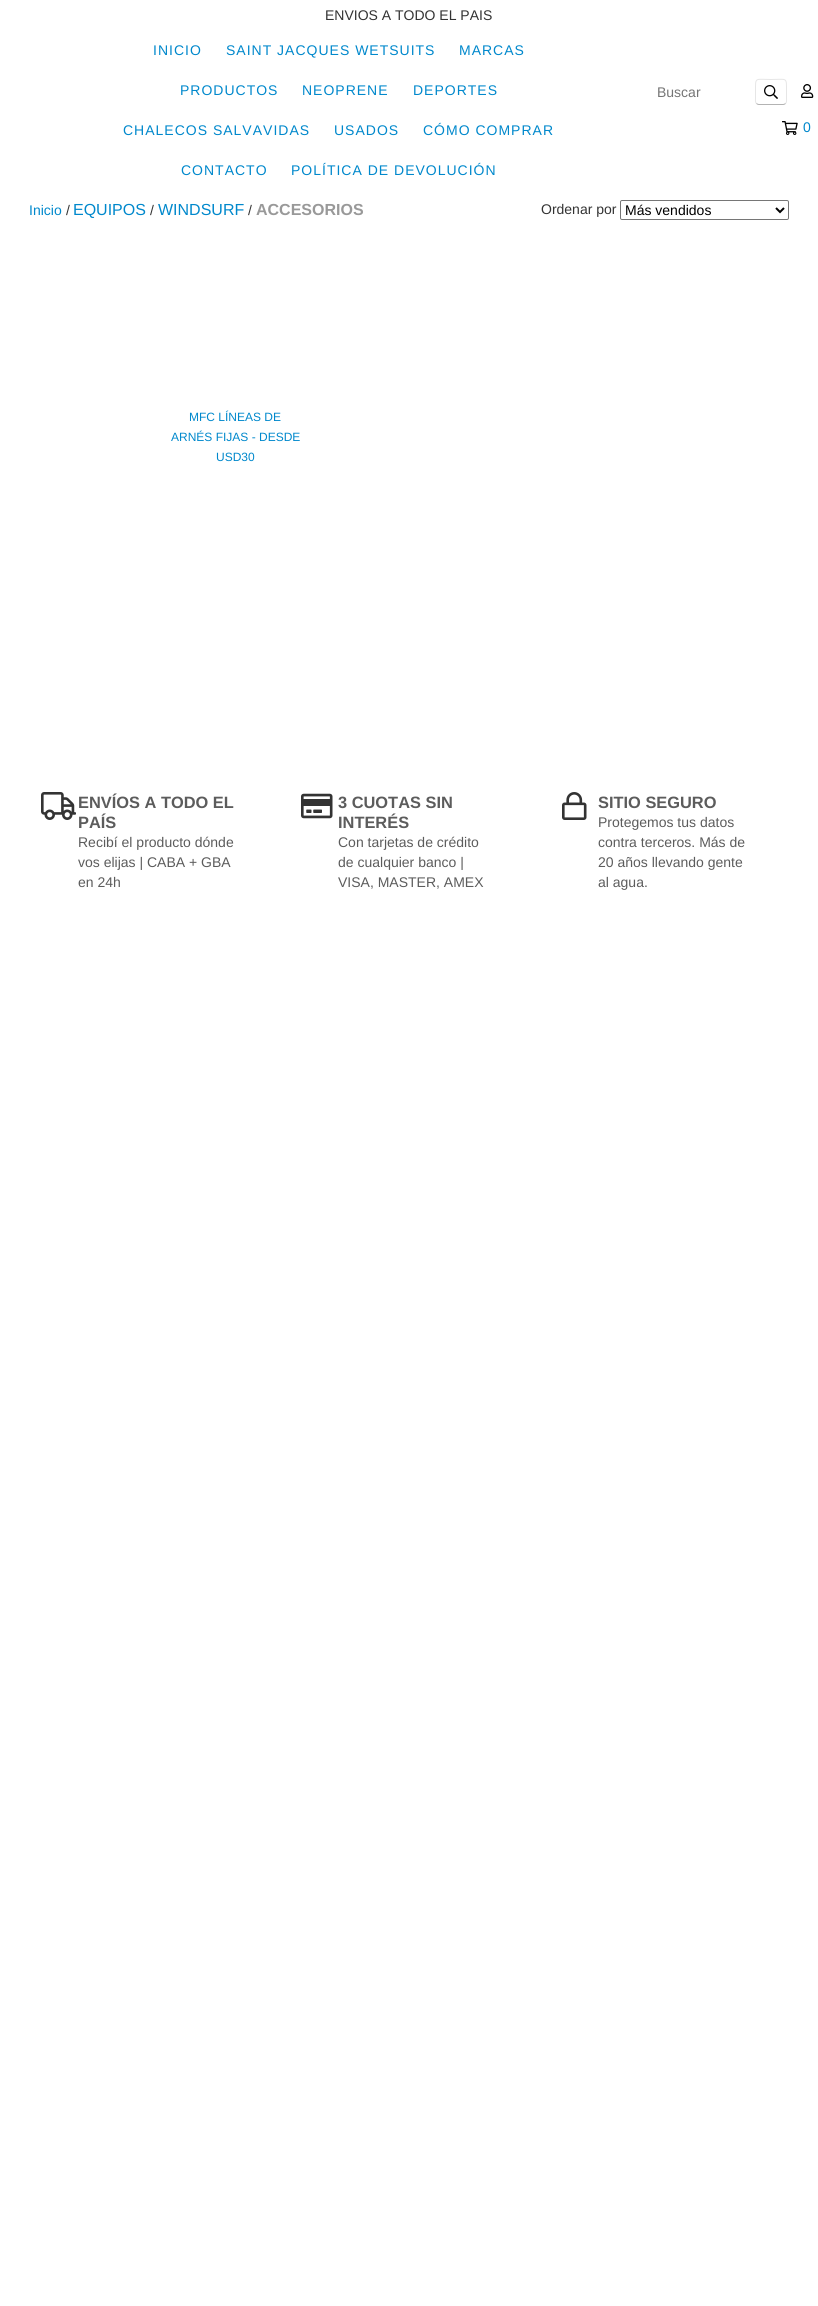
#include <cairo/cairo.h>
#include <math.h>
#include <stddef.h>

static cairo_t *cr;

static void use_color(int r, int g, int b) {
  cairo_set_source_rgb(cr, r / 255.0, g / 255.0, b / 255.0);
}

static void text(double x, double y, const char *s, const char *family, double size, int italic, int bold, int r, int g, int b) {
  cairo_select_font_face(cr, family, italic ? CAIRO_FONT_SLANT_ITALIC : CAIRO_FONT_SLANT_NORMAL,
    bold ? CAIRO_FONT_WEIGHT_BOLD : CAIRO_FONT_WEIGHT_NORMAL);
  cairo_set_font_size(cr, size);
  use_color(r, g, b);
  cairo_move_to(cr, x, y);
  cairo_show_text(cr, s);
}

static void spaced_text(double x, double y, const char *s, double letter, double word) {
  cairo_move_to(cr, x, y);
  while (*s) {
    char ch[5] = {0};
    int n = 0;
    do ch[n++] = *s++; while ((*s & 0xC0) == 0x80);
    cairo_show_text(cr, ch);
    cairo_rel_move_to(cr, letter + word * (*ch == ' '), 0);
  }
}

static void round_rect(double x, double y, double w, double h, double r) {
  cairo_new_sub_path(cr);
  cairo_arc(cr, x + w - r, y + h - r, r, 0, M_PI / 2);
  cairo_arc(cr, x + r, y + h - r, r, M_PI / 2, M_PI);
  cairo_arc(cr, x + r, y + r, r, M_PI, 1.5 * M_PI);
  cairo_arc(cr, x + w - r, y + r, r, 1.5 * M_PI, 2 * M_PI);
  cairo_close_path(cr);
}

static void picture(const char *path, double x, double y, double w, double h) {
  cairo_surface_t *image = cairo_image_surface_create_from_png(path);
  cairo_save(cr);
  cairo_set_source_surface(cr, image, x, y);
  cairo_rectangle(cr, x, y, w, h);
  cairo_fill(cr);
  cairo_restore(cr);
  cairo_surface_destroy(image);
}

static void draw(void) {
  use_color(255, 255, 255);
  cairo_paint(cr);
  cairo_new_path(cr);
  cairo_move_to(cr, 785.5, 103.5);
  cairo_curve_to(cr, 785, 104, 784, 104.5, 783, 104.5);
  cairo_line_to(cr, 759, 104.5);
  cairo_curve_to(cr, 758, 104.5, 757, 104, 756.5, 103.5);
  use_color(179, 179, 179);
  cairo_set_line_width(cr, 1);
  cairo_stroke(cr);
  cairo_new_path(cr);
  cairo_move_to(cr, 756.5, 103.5);
  cairo_curve_to(cr, 755, 102, 755.5, 100, 755.5, 98);
  cairo_line_to(cr, 755.5, 92);
  cairo_curve_to(cr, 755.5, 76.5, 754.5, 79.5, 771, 79.5);
  cairo_curve_to(cr, 787.5, 79.5, 786.5, 76.5, 786.5, 92);
  cairo_line_to(cr, 786.5, 98);
  cairo_curve_to(cr, 786.5, 100, 787, 102, 785.5, 103.5);
  cairo_set_source_rgba(cr, 0, 0, 0, 0.1);
  cairo_stroke(cr);
  picture("img_01.png", 764, 85, 14, 14);
  picture("img_02.png", 801, 84, 13, 14);
  picture("img_03.png", 782, 121, 16, 14);
  round_rect(620.5, 200.5, 168, 19, 1.5);
  use_color(118, 118, 118);
  cairo_stroke(cr);
  cairo_new_path(cr);
  cairo_move_to(cr, 776, 208);
  cairo_line_to(cr, 780, 212);
  cairo_line_to(cr, 784, 208);
  use_color(0, 0, 0);
  cairo_set_line_width(cr, 2);
  cairo_stroke(cr);
  picture("img_04.png", 41, 792, 35, 28);
  picture("img_05.png", 301, 793, 32, 26);
  picture("img_06.png", 562, 792, 25, 28);
  text(325, 20, "ENVIOS A TODO EL PAIS", "Liberation Sans", 14, 0, 0, 51, 51, 51);
  use_color(0, 136, 204);
  spaced_text(153, 55, "INICIO", 1, 0);
  spaced_text(226, 55, "SAINT JACQUES WETSUITS", 1, 0);
  spaced_text(459, 55, "MARCAS", 1, 0);
  spaced_text(180, 95, "PRODUCTOS", 1, 0);
  spaced_text(302, 95, "NEOPRENE", 1, 0);
  spaced_text(413, 95, "DEPORTES", 1, 0);
  spaced_text(123, 135, "CHALECOS SALVAVIDAS", 1, 0);
  spaced_text(334, 135, "USADOS", 1, 0);
  spaced_text(423, 135, "CÓMO COMPRAR", 1, 0);
  spaced_text(181, 175, "CONTACTO", 1, 0);
  spaced_text(291, 175, "POLÍTICA DE DEVOLUCIÓN", 1, 0);
  text(657, 97, "Buscar", "Liberation Sans", 14, 0, 0, 117, 117, 117);
  use_color(0, 136, 204);
  spaced_text(803, 132, "0", 1, 0);
  text(29, 215, "Inicio", "Liberation Sans", 14, 0, 0, 0, 136, 204);
  text(66, 215, "/", "Liberation Sans", 14, 0, 0, 51, 51, 51);
  text(73, 215, "EQUIPOS", "Liberation Sans", 16, 0, 0, 0, 136, 204);
  text(150, 215, "/", "Liberation Sans", 14, 0, 0, 51, 51, 51);
  text(158, 215, "WINDSURF", "Liberation Sans", 16, 0, 0, 0, 136, 204);
  text(248, 215, "/", "Liberation Sans", 14, 0, 0, 51, 51, 51);
  text(256, 215, "ACCESORIOS", "Liberation Sans", 16, 0, 1, 153, 153, 153);
  text(541, 214, "Ordenar por", "Liberation Sans", 14, 0, 0, 51, 51, 51);
  text(625, 215, "Más vendidos", "Liberation Sans", 14, 0, 0, 0, 0, 0);
  text(189, 421, "MFC LÍNEAS DE", "Liberation Sans", 12, 0, 0, 0, 136, 204);
  text(171, 441, "ARNÉS FIJAS - DESDE", "Liberation Sans", 12, 0, 0, 0, 136, 204);
  text(216, 461, "USD30", "Liberation Sans", 12, 0, 0, 0, 136, 204);
  text(78, 808, "ENVÍOS A TODO EL", "Liberation Sans", 16.4, 0, 1, 92, 92, 92);
  text(78, 828, "PAÍS", "Liberation Sans", 16.4, 0, 1, 92, 92, 92);
  text(78, 847, "Recibí el producto dónde", "Liberation Sans", 14, 0, 0, 92, 92, 92);
  text(78, 867, "vos elijas | CABA + GBA", "Liberation Sans", 14, 0, 0, 92, 92, 92);
  text(78, 887, "en 24h", "Liberation Sans", 14, 0, 0, 92, 92, 92);
  text(338, 808, "3 CUOTAS SIN", "Liberation Sans", 16.4, 0, 1, 92, 92, 92);
  text(338, 828, "INTERÉS", "Liberation Sans", 16.4, 0, 1, 92, 92, 92);
  text(338, 847, "Con tarjetas de crédito", "Liberation Sans", 14, 0, 0, 92, 92, 92);
  text(338, 867, "de cualquier banco |", "Liberation Sans", 14, 0, 0, 92, 92, 92);
  text(338, 887, "VISA, MASTER, AMEX", "Liberation Sans", 14, 0, 0, 92, 92, 92);
  text(598, 808, "SITIO SEGURO", "Liberation Sans", 16.4, 0, 1, 92, 92, 92);
  text(598, 827, "Protegemos tus datos", "Liberation Sans", 14, 0, 0, 92, 92, 92);
  text(598, 847, "contra terceros. Más de", "Liberation Sans", 14, 0, 0, 92, 92, 92);
  text(598, 867, "20 años llevando gente", "Liberation Sans", 14, 0, 0, 92, 92, 92);
  text(598, 887, "al agua.", "Liberation Sans", 14, 0, 0, 92, 92, 92);
}

int main(void) {
  cairo_surface_t *surface = cairo_image_surface_create(CAIRO_FORMAT_RGB24, 818, 2306);
  cr = cairo_create(surface);
  cairo_font_options_t *options = cairo_font_options_create();
  cairo_font_options_set_hint_metrics(options, CAIRO_HINT_METRICS_OFF);
  cairo_font_options_set_hint_style(options, CAIRO_HINT_STYLE_NONE);
  cairo_set_font_options(cr, options);
  cairo_set_miter_limit(cr, 4);
  draw();
  cairo_surface_write_to_png(surface, "out.png");
  cairo_font_options_destroy(options);
  cairo_destroy(cr);
  cairo_surface_destroy(surface);
  return 0;
}
